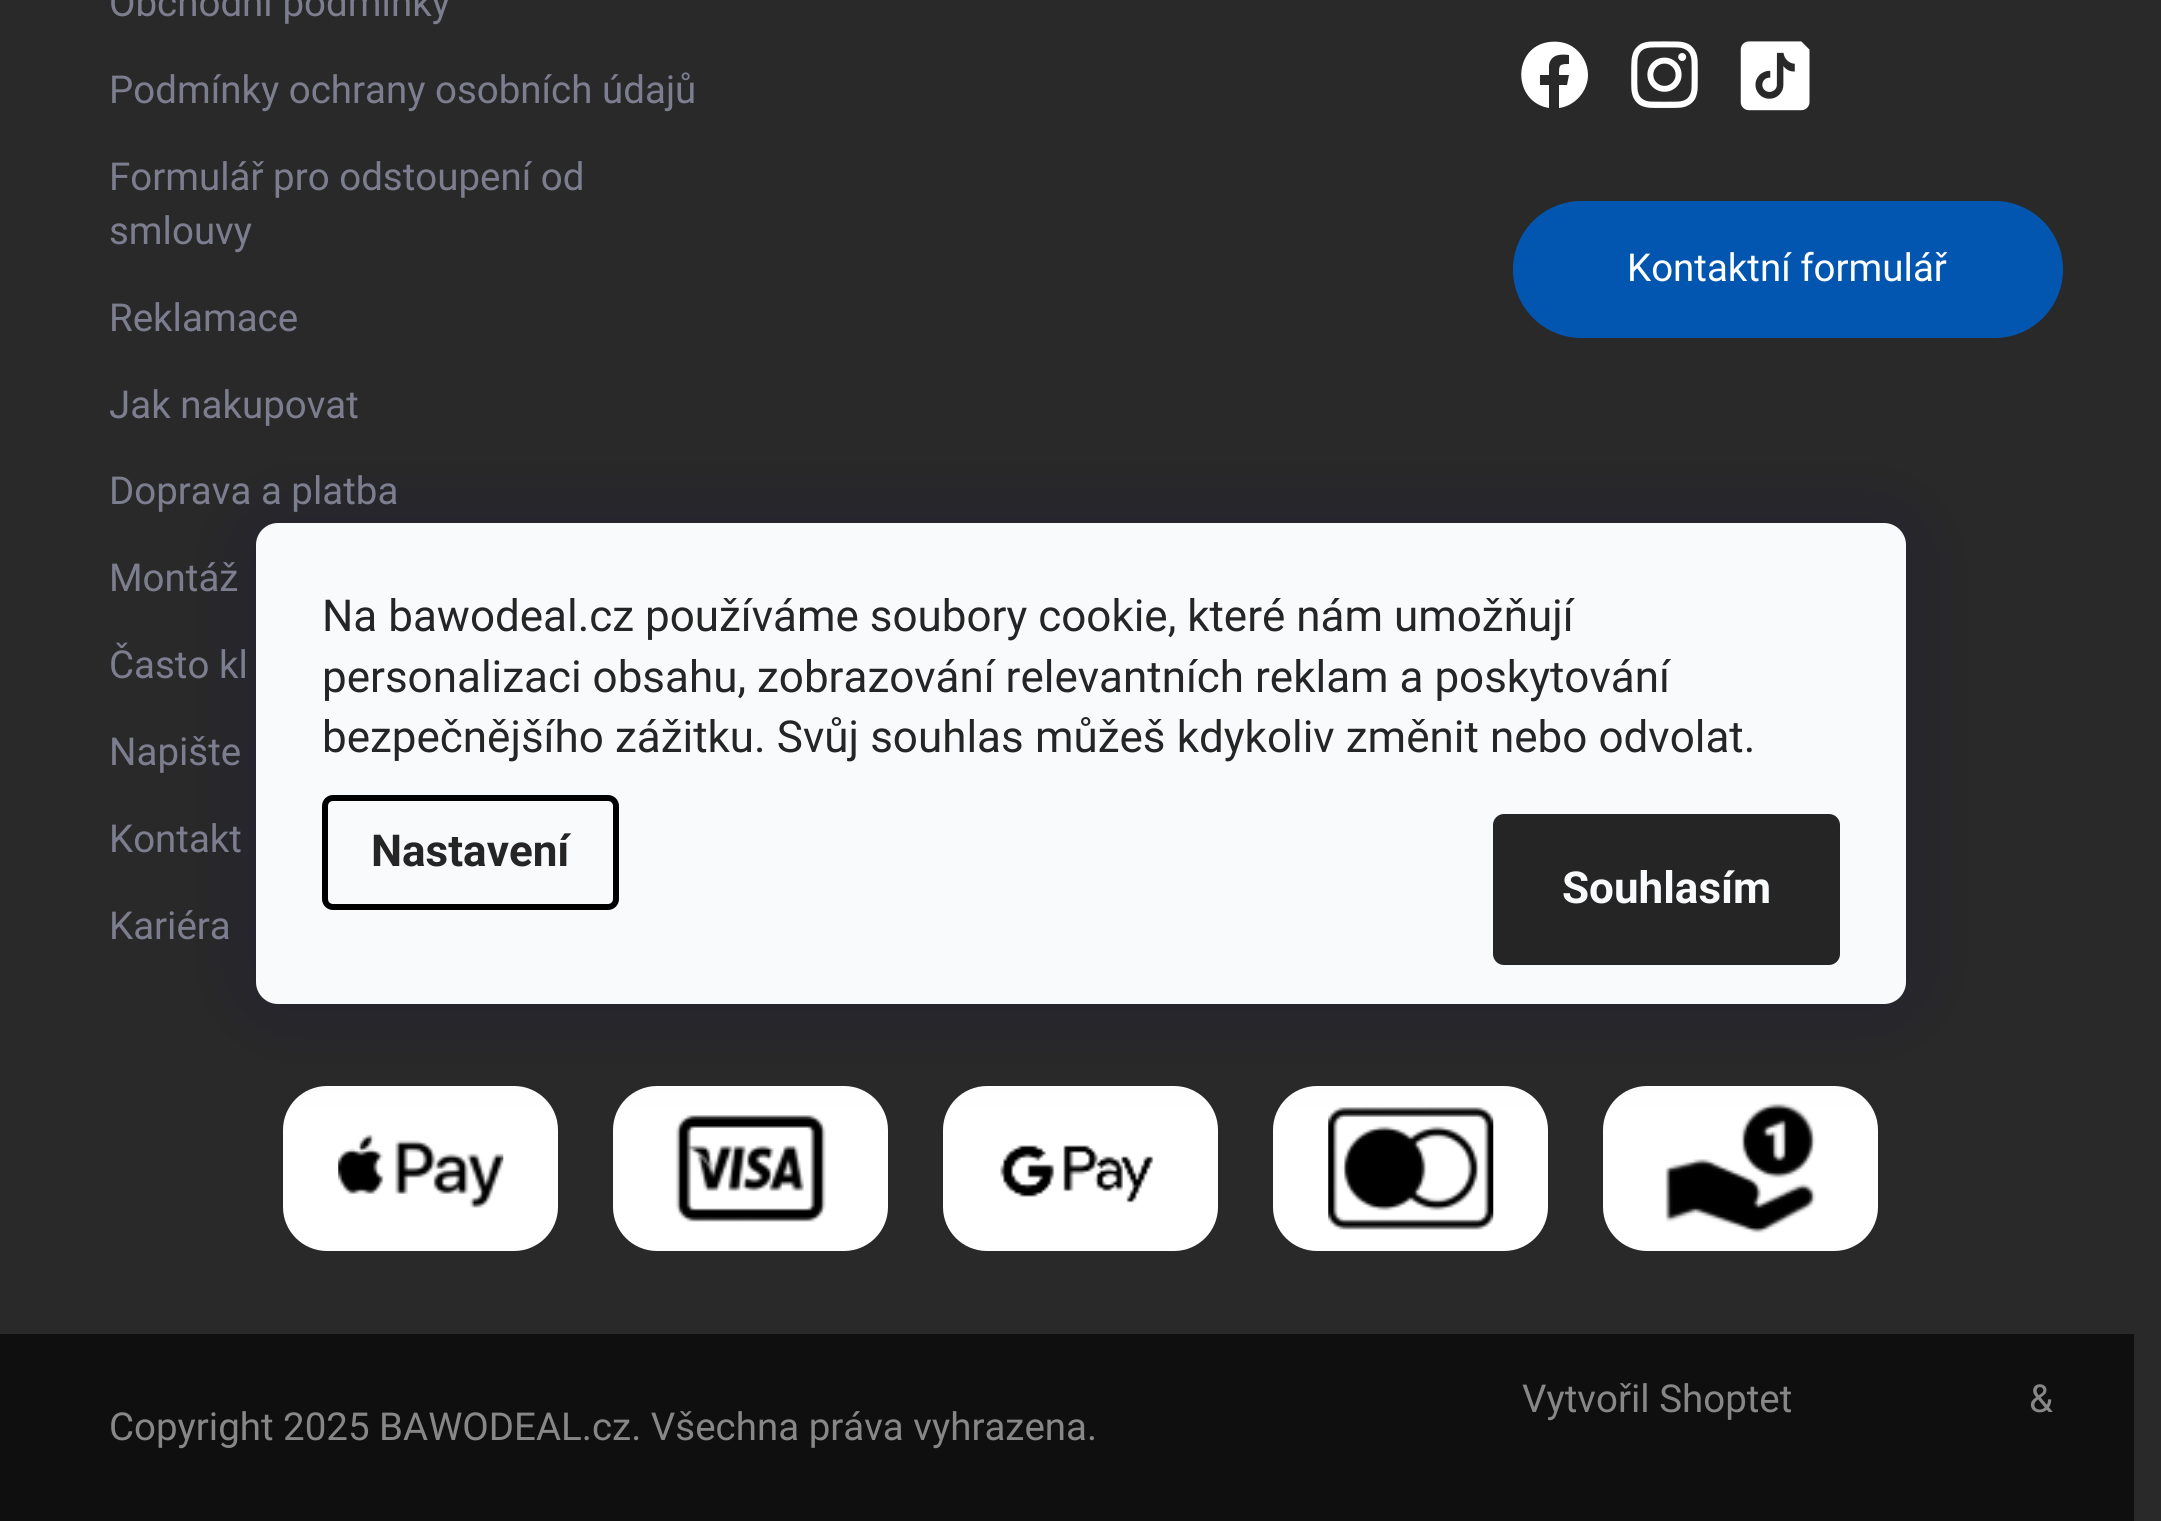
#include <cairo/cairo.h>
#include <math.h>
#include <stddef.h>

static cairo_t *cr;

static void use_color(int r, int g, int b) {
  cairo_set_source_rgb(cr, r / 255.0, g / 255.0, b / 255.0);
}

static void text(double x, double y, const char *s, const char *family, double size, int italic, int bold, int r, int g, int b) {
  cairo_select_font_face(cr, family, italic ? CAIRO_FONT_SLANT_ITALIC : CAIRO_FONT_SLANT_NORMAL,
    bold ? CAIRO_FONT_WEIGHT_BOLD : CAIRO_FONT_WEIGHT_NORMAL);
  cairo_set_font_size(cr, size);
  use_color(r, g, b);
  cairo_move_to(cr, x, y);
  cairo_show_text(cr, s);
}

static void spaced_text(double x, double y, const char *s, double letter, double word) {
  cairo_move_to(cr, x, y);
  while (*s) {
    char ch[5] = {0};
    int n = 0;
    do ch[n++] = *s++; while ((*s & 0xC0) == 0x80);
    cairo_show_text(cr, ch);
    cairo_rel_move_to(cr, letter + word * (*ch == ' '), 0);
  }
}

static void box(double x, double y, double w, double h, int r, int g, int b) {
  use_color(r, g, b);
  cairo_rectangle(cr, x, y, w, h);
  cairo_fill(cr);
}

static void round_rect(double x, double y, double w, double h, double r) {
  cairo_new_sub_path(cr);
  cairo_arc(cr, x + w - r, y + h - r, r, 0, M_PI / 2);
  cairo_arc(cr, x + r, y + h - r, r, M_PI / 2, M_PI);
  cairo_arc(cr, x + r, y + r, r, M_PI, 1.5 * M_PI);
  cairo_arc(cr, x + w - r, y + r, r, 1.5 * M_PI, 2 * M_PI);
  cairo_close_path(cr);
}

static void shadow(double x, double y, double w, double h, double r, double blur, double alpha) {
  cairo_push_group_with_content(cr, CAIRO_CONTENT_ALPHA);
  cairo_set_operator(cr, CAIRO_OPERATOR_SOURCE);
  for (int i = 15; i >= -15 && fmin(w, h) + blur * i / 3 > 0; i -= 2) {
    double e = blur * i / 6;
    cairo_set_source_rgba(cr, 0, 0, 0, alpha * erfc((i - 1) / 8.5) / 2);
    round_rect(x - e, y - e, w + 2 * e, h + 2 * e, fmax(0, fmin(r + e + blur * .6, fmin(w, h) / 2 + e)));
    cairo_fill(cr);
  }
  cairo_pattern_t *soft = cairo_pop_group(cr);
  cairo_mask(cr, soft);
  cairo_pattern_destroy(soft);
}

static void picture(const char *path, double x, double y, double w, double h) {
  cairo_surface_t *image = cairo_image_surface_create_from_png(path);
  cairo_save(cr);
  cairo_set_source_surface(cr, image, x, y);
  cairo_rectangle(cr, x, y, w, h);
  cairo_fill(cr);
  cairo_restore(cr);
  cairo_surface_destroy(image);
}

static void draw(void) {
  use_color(41, 41, 41);
  cairo_paint(cr);
  use_color(255, 255, 255);
  cairo_new_path(cr);
  cairo_move_to(cr, 1588, 75);
  cairo_curve_to(cr, 1588, 64, 1582, 53, 1573, 47);
  cairo_curve_to(cr, 1566, 42, 1557, 41, 1549, 42);
  cairo_curve_to(cr, 1512, 47, 1512, 102, 1549, 108);
  cairo_line_to(cr, 1549, 85);
  cairo_line_to(cr, 1540, 85);
  cairo_line_to(cr, 1540, 75);
  cairo_line_to(cr, 1549, 75);
  cairo_line_to(cr, 1549, 65);
  cairo_curve_to(cr, 1551, 54, 1561, 54, 1569, 55);
  cairo_line_to(cr, 1569, 64);
  cairo_curve_to(cr, 1559, 64, 1559, 65, 1559, 75);
  cairo_line_to(cr, 1569, 75);
  cairo_line_to(cr, 1567, 85);
  cairo_line_to(cr, 1559, 85);
  cairo_line_to(cr, 1559, 108);
  cairo_curve_to(cr, 1575, 106, 1588, 91, 1588, 75);
  cairo_close_path(cr);
  cairo_fill(cr);
  picture("img_01.png", 1631, 41, 67, 67);
  picture("img_02.png", 1740, 41, 70, 70);
  use_color(3, 86, 176);
  round_rect(1514.5, 202.5, 547, 134, 67);
  cairo_fill_preserve(cr);
  cairo_set_line_width(cr, 3);
  cairo_stroke(cr);
  use_color(255, 255, 255);
  round_rect(283, 1086, 275, 165, 44);
  cairo_fill(cr);
  picture("img_03.png", 338, 1134, 166, 74);
  round_rect(613, 1086, 275, 165, 44);
  cairo_fill(cr);
  picture("img_04.png", 675, 1115, 151, 107);
  round_rect(943, 1086, 275, 165, 44);
  cairo_fill(cr);
  picture("img_05.png", 1000, 1145, 154, 58);
  round_rect(1273, 1086, 275, 165, 44);
  cairo_fill(cr);
  picture("img_06.png", 1328, 1107, 166, 123);
  round_rect(1603, 1086, 275, 165, 44);
  cairo_fill(cr);
  picture("img_07.png", 1665, 1102, 151, 131);
  box(0, 1334, 2134, 187, 15, 15, 15);
  cairo_save(cr);
  cairo_set_fill_rule(cr, CAIRO_FILL_RULE_EVEN_ODD);
  cairo_new_path(cr);
  cairo_move_to(cr, 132, 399);
  cairo_line_to(cr, 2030, 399);
  cairo_line_to(cr, 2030, 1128);
  cairo_line_to(cr, 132, 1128);
  cairo_close_path(cr);
  cairo_move_to(cr, 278, 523);
  cairo_line_to(cr, 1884, 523);
  cairo_curve_to(cr, 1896, 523, 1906, 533, 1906, 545);
  cairo_line_to(cr, 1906, 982);
  cairo_curve_to(cr, 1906, 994, 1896, 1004, 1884, 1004);
  cairo_line_to(cr, 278, 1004);
  cairo_curve_to(cr, 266, 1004, 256, 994, 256, 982);
  cairo_line_to(cr, 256, 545);
  cairo_curve_to(cr, 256, 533, 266, 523, 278, 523);
  cairo_close_path(cr);
  cairo_clip(cr);
  use_color(27, 25, 57);
  shadow(256, 523, 1650, 481, 22, 41, 0.5);
  cairo_restore(cr);
  use_color(248, 250, 251);
  round_rect(256, 523, 1650, 481, 22);
  cairo_fill(cr);
  round_rect(325, 798, 291, 109, 8);
  use_color(0, 0, 0);
  cairo_set_line_width(cr, 6);
  cairo_stroke(cr);
  use_color(37, 37, 37);
  round_rect(1493, 814, 347, 151, 11);
  cairo_fill(cr);
  text(109, 16, "Obchodní podmínky", "Roboto", 38.5, 0, 0, 124, 126, 143);
  text(109, 103, "Podmínky ochrany osobních údajů", "Roboto", 38.5, 0, 0, 124, 126, 143);
  text(109, 190, "Formulář pro odstoupení od", "Roboto", 38.5, 0, 0, 124, 126, 143);
  text(109, 244, "smlouvy", "Roboto", 38.5, 0, 0, 124, 126, 143);
  text(109, 331, "Reklamace", "Roboto", 38.5, 0, 0, 124, 126, 143);
  text(109, 418, "Jak nakupovat", "Roboto", 38.5, 0, 0, 124, 126, 143);
  text(109, 504, "Doprava a platba", "Roboto", 38.5, 0, 0, 124, 126, 143);
  text(109, 591, "Montáž", "Roboto", 38.5, 0, 0, 124, 126, 143);
  text(109, 678, "Často kl", "Roboto", 38.5, 0, 0, 124, 126, 143);
  text(109, 765, "Napište", "Roboto", 38.5, 0, 0, 124, 126, 143);
  text(109, 852, "Kontakt", "Roboto", 38.5, 0, 0, 124, 126, 143);
  text(109, 939, "Kariéra", "Roboto", 38.5, 0, 0, 124, 126, 143);
  text(1627, 281, "Kontaktní formulář", "Roboto", 38.5, 0, 0, 255, 255, 255);
  text(1522, 1412, "Vytvořil Shoptet", "Roboto", 38.5, 0, 0, 135, 135, 135);
  text(2029, 1412, "&", "Roboto", 38.5, 0, 0, 135, 135, 135);
  text(109, 1440, "Copyright 2025 BAWODEAL.cz. Všechna práva vyhrazena.", "Roboto", 38.5, 0, 0, 135, 135, 135);
  text(322, 631, "Na bawodeal.cz používáme soubory cookie, které nám umožňují", "Roboto", 44, 0, 0, 37, 37, 37);
  text(322, 692, "personalizaci obsahu, zobrazování relevantních reklam a poskytování", "Roboto", 44, 0, 0, 37, 37, 37);
  spaced_text(322, 752, "bezpečnějšího zážitku. Svůj souhlas můžeš kdykoliv změnit nebo odvolat.", 0, 0.25);
  text(371, 866, "Nastavení", "Roboto", 44, 0, 1, 37, 37, 37);
  text(1562, 903, "Souhlasím", "Roboto", 44, 0, 1, 248, 250, 251);
}

int main(void) {
  cairo_surface_t *surface = cairo_image_surface_create(CAIRO_FORMAT_RGB24, 2161, 1521);
  cr = cairo_create(surface);
  cairo_font_options_t *options = cairo_font_options_create();
  cairo_font_options_set_hint_metrics(options, CAIRO_HINT_METRICS_OFF);
  cairo_font_options_set_hint_style(options, CAIRO_HINT_STYLE_NONE);
  cairo_set_font_options(cr, options);
  cairo_set_miter_limit(cr, 4);
  draw();
  cairo_surface_write_to_png(surface, "out.png");
  cairo_font_options_destroy(options);
  cairo_destroy(cr);
  cairo_surface_destroy(surface);
  return 0;
}
